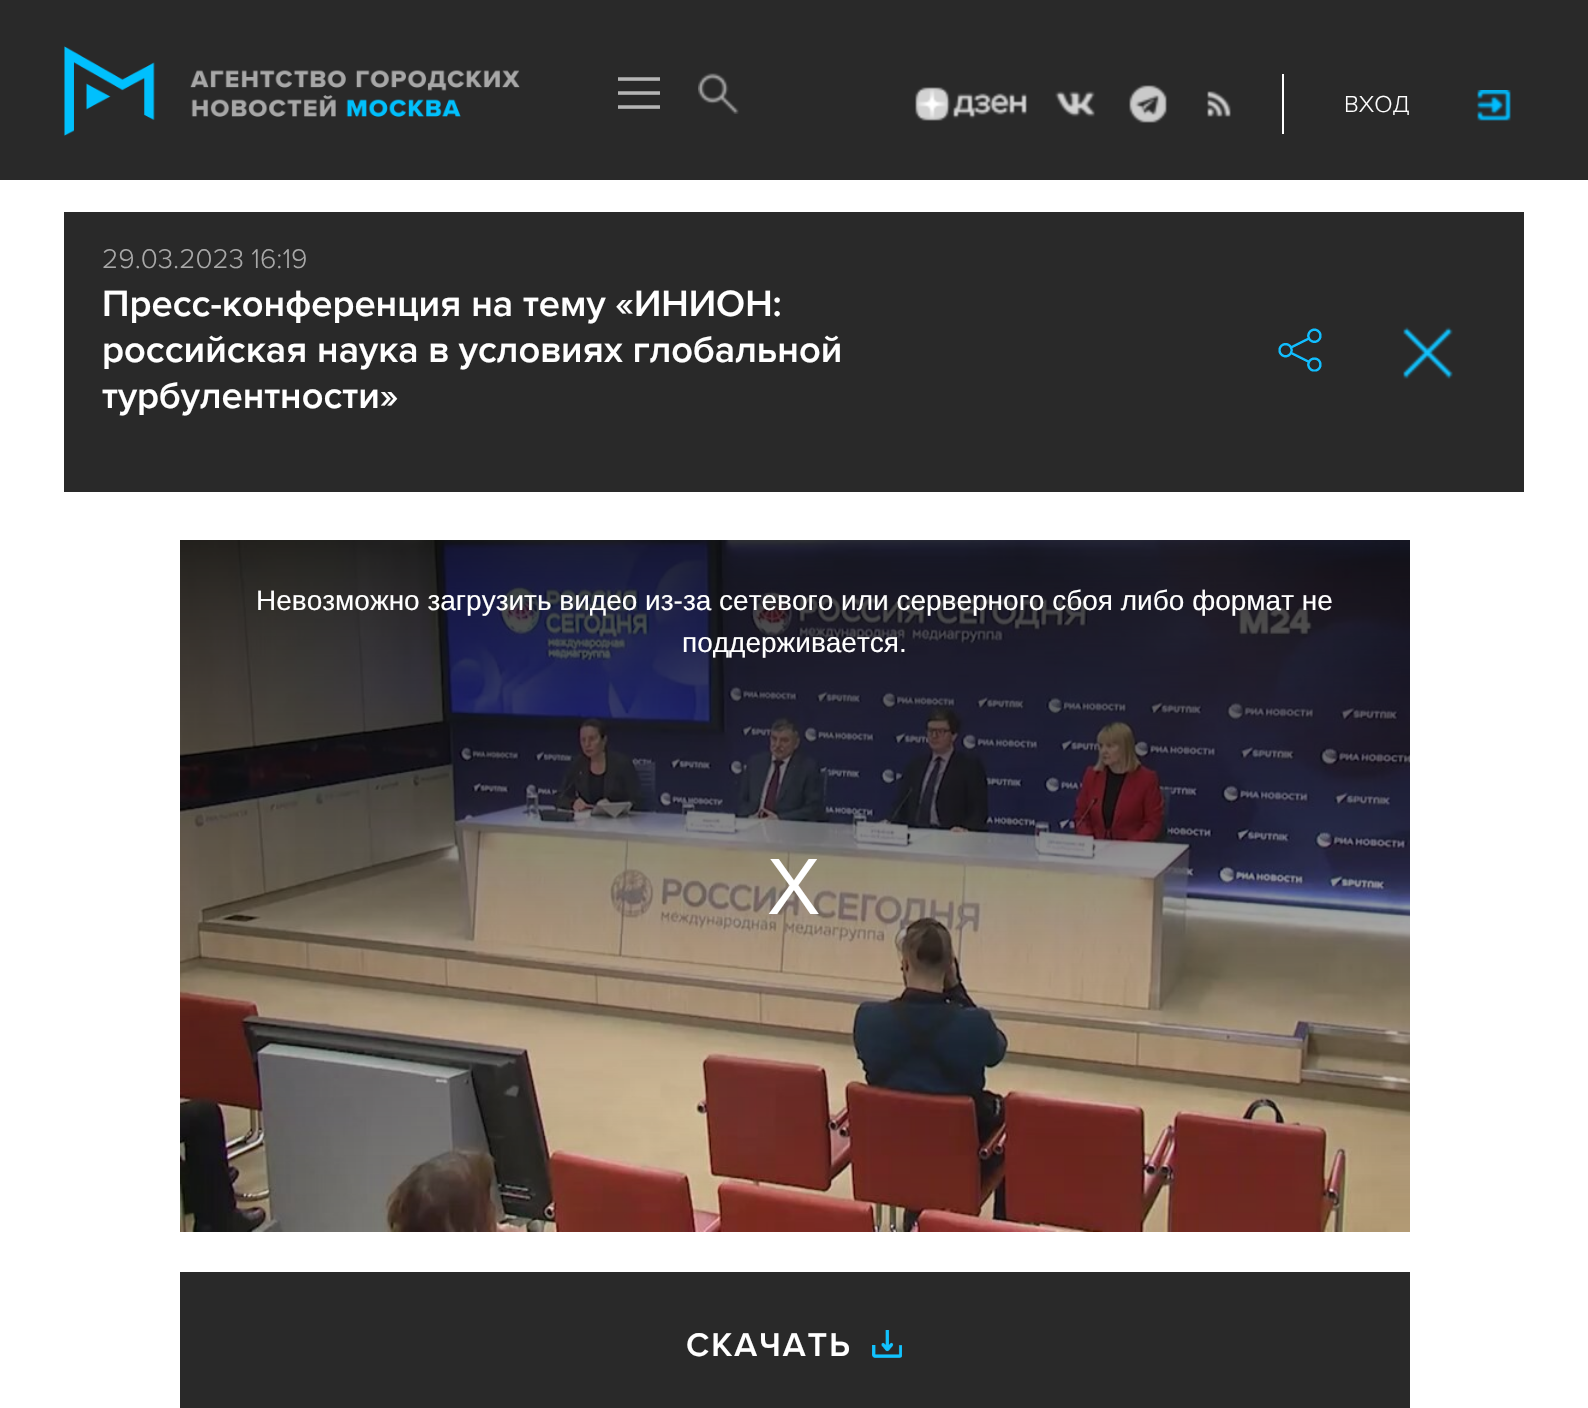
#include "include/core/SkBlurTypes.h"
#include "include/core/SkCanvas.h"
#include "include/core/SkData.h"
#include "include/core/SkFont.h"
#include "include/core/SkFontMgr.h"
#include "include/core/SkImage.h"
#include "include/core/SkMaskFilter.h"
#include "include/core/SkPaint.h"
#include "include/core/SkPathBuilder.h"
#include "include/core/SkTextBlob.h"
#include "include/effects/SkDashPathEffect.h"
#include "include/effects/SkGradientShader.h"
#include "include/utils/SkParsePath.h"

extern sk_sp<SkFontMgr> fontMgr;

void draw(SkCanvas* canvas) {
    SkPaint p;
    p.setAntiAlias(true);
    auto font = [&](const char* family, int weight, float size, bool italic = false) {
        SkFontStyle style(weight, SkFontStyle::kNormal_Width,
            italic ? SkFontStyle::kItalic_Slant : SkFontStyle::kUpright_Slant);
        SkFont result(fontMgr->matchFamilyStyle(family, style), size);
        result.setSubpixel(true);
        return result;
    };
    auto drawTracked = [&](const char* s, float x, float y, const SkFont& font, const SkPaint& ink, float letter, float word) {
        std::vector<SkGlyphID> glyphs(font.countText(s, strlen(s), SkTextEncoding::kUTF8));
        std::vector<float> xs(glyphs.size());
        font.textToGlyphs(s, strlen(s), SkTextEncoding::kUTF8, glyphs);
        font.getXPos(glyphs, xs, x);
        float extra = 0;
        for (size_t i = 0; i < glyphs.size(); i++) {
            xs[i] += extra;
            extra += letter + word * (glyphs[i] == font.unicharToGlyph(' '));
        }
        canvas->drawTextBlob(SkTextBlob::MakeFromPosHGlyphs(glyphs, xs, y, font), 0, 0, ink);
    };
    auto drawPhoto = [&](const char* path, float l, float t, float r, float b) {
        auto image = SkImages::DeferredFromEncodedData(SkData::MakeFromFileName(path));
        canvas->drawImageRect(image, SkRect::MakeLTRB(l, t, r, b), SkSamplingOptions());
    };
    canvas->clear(0xFFFFFFFF);
    p.setColor(0xFF292929);
    canvas->drawRect(SkRect::MakeLTRB(0, 0, 1588, 180), p);
    drawPhoto("media/1.png", 64, 46, 520, 136);
    drawPhoto("media/2.png", 618, 77, 660, 109);
    drawPhoto("media/3.png", 698, 73, 739, 114);
    p.setColor(0xFFFFFFFF);
    canvas->drawRect(SkRect::MakeLTRB(1282, 74, 1284, 134), p);
    drawPhoto("media/4.png", 915, 87, 1027, 121);
    drawPhoto("media/5.png", 1055, 91, 1095, 117);
    drawPhoto("media/6.png", 1129, 85, 1167, 123);
    drawPhoto("media/7.png", 1207, 91, 1231, 117);
    drawPhoto("media/8.png", 1477, 90, 1511, 121);
    auto font1 = font("Proxima Nova", 300, 24);
    canvas->drawString("ВХОД", 1344, 112, font1, p);
    p.setColor(0xFF292929);
    canvas->drawRect(SkRect::MakeLTRB(64, 212, 1524, 492), p);
    auto font2 = font("Proxima Nova", 300, 28);
    p.setColor(0xFFA8A8A8);
    canvas->drawString("29.03.2023 16:19", 102, 268, font2, p);
    auto font3 = font("Proxima Nova", 600, 38);
    p.setColor(0xFFFFFFFF);
    {
        const struct { const char* s; float x, y; } items[] = {
            {"Пресс-конференция на тему «ИНИОН:", 102, 316},
            {"российская наука в условиях глобальной", 102, 362},
            {"турбулентности»", 102, 408},
        };
        for (auto [s, x, y] : items) {
            canvas->drawString(s, x, y, font3, p);
        }
    }
    drawPhoto("media/9.png", 1278, 328, 1322, 372);
    drawPhoto("media/10.png", 1403, 327, 1453, 379);
    drawPhoto("media/11.png", 180, 540, 1410, 1232);
    auto font4 = font("Liberation Sans", 400, 28);
    canvas->drawString("Невозможно загрузить видео из-за сетевого или серверного сбоя либо формат не", 256, 610, font4, p);
    canvas->drawString("поддерживается.", 682, 652, font4, p);
    auto font5 = font("Liberation Sans", 400, 80);
    canvas->drawString("X", 767, 914, font5, p);
    p.setColor(0xFF292929);
    canvas->drawRect(SkRect::MakeLTRB(180, 1272, 1410, 1408), p);
    drawPhoto("media/12.png", 872, 1330, 902, 1358);
    auto font6 = font("Proxima Nova", 600, 34);
    p.setColor(0xFFFFFFFF);
    drawTracked("СКАЧАТЬ", 686, 1356, font6, p, 2, 0);
}
